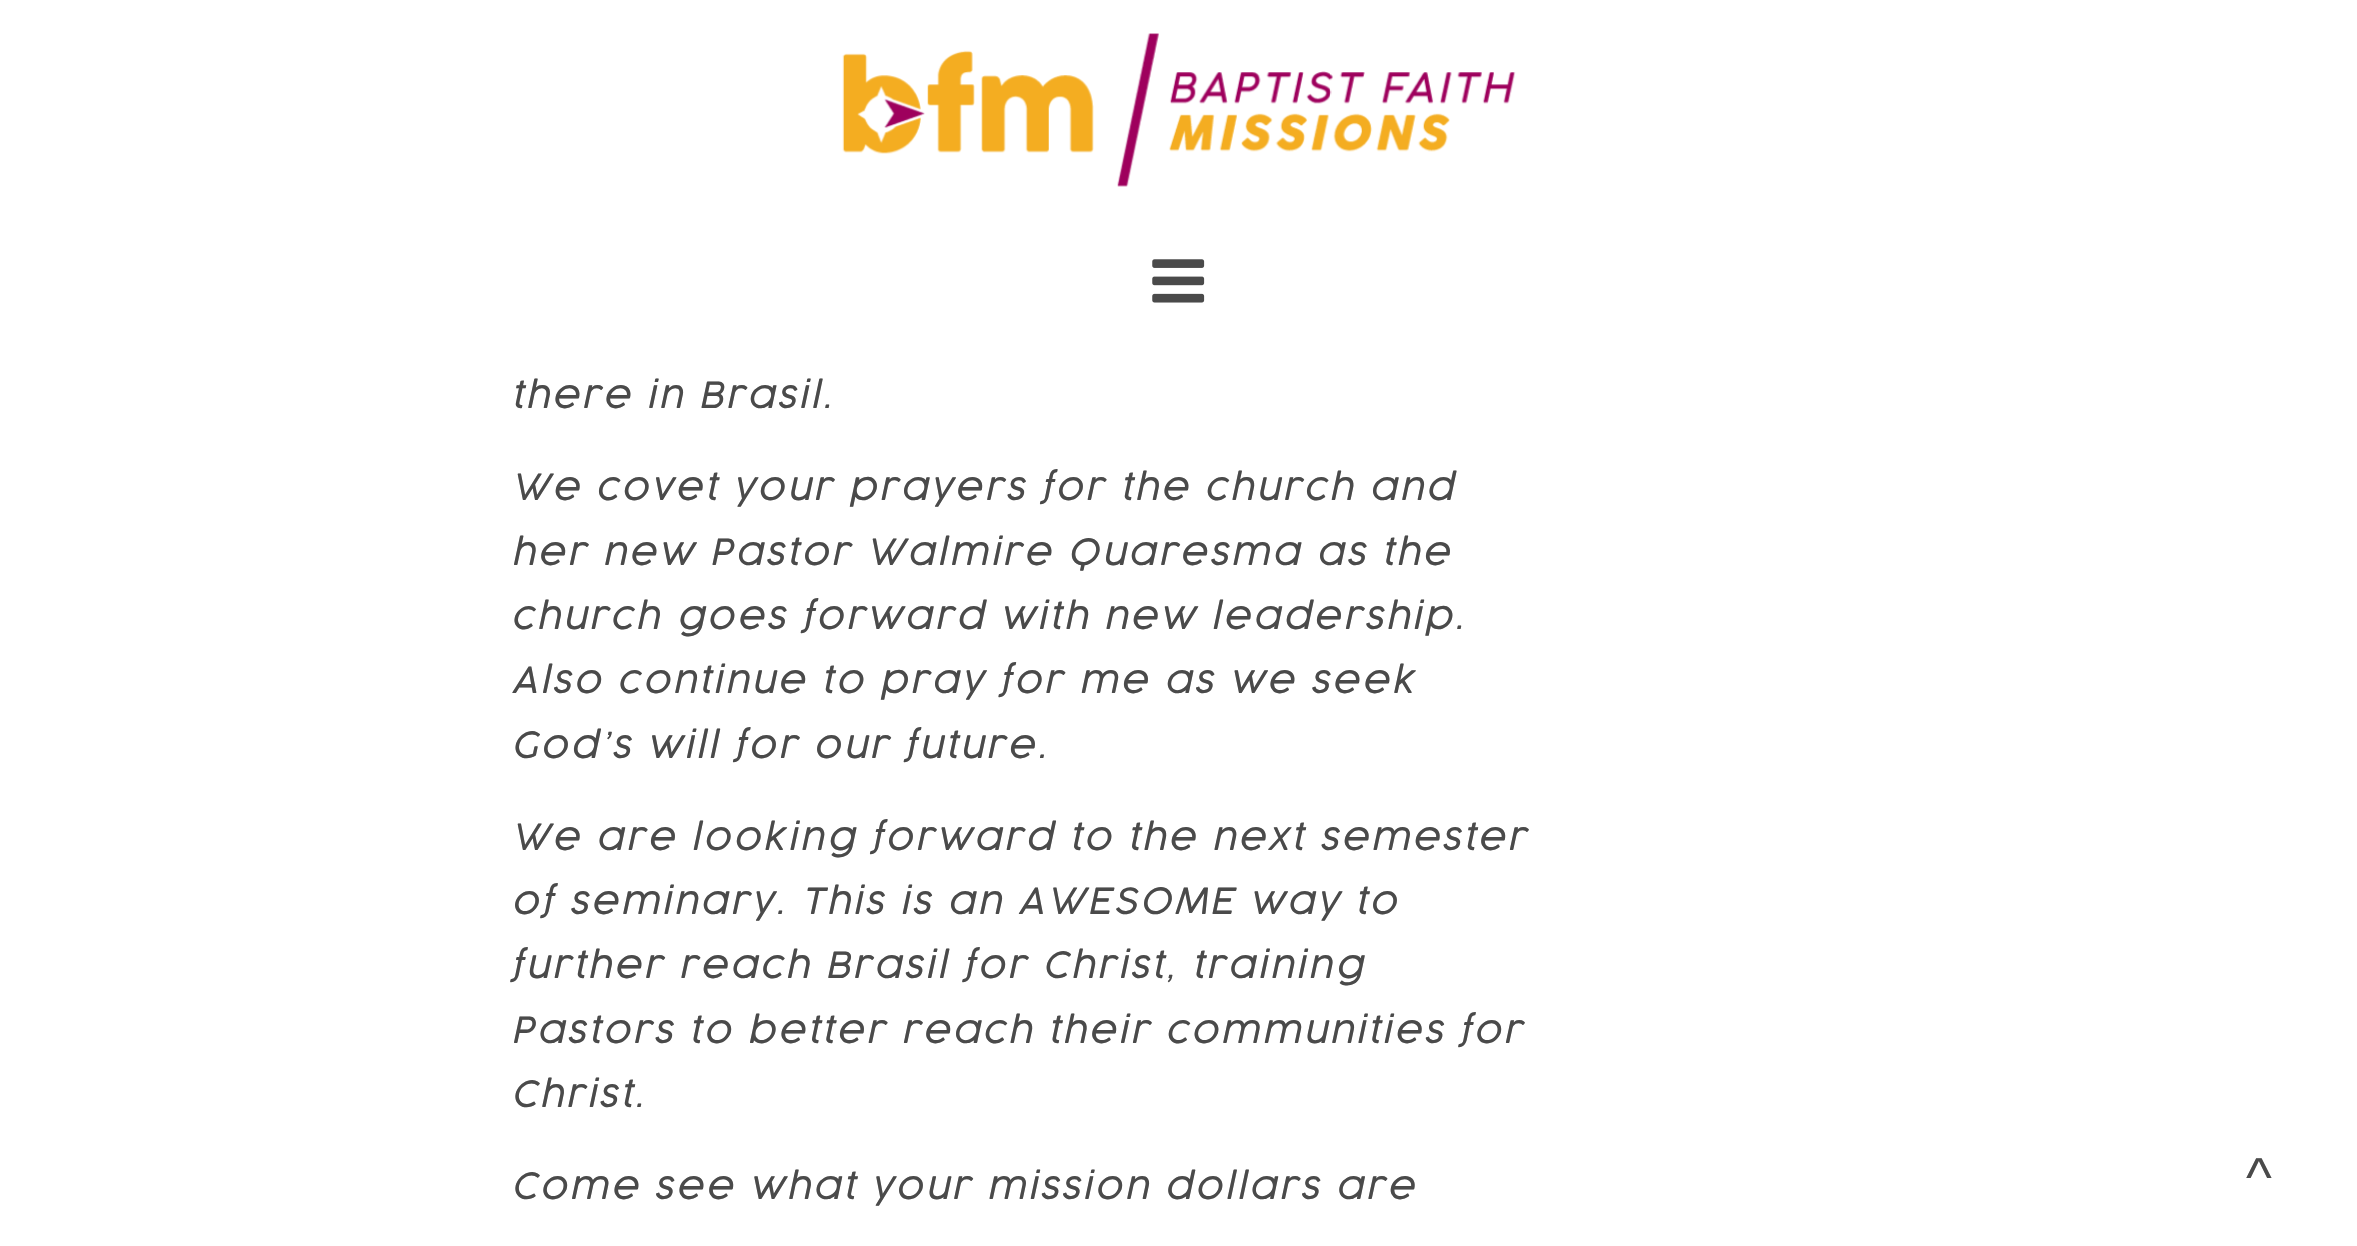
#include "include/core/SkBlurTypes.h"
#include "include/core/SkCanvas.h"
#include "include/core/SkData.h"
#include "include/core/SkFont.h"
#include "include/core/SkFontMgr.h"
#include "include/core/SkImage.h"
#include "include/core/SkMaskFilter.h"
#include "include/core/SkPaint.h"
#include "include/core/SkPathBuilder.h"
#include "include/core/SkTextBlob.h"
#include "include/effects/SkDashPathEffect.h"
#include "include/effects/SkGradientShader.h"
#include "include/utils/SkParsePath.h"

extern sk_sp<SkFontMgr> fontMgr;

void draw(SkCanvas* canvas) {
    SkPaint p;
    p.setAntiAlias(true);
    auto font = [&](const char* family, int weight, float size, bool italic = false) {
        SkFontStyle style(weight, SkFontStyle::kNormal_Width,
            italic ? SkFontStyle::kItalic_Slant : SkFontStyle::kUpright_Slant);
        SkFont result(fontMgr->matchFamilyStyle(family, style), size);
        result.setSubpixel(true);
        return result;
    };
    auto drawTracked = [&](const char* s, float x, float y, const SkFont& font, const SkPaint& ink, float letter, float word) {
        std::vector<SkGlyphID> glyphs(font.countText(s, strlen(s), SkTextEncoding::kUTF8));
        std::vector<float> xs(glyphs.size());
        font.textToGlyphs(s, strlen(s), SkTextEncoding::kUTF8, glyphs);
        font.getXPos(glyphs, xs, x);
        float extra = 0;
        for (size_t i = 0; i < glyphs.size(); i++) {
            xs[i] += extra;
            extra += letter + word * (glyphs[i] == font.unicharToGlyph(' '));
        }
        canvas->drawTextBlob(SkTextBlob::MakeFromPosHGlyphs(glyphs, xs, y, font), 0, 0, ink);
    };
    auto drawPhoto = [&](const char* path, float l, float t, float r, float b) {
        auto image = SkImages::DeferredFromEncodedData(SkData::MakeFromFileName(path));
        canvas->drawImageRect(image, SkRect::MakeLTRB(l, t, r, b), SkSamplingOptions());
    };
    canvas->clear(0xFFFFFFFF);
    drawPhoto("media/1.png", 842, 33, 1516, 187);
    drawPhoto("media/2.png", 1152, 259, 1205, 303);
    auto font1 = font("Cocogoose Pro", 300, 35.75f, true);
    p.setColor(0xFF4A4A4A);
    {
        const struct { const char* s; float x, y; } items[] = {
            {"there in Brasil.", 511, 408},
            {"We covet your prayers for the church and", 511, 500},
            {"her new Pastor Walmire Quaresma as the", 511, 565},
            {"church goes forward with new leadership.", 511, 629},
            {"Also continue to pray for me as we seek", 511, 693},
            {"God’s will for our future.", 511, 758},
            {"We are looking forward to the next semester", 511, 850},
            {"of seminary. This is an AWESOME way to", 511, 914},
            {"further reach Brasil for Christ, training", 511, 978},
            {"Pastors to better reach their communities for", 511, 1043},
            {"Christ.", 511, 1107},
            {"Come see what your mission dollars are", 511, 1199},
        };
        for (auto [s, x, y] : items) {
            drawTracked(s, x, y, font1, p, 2.75f, 0);
        }
    }
    auto font2 = font("Liberation Sans", 400, 55);
    drawTracked("^", 2246, 1196, font2, p, 2.75f, 0);
}
